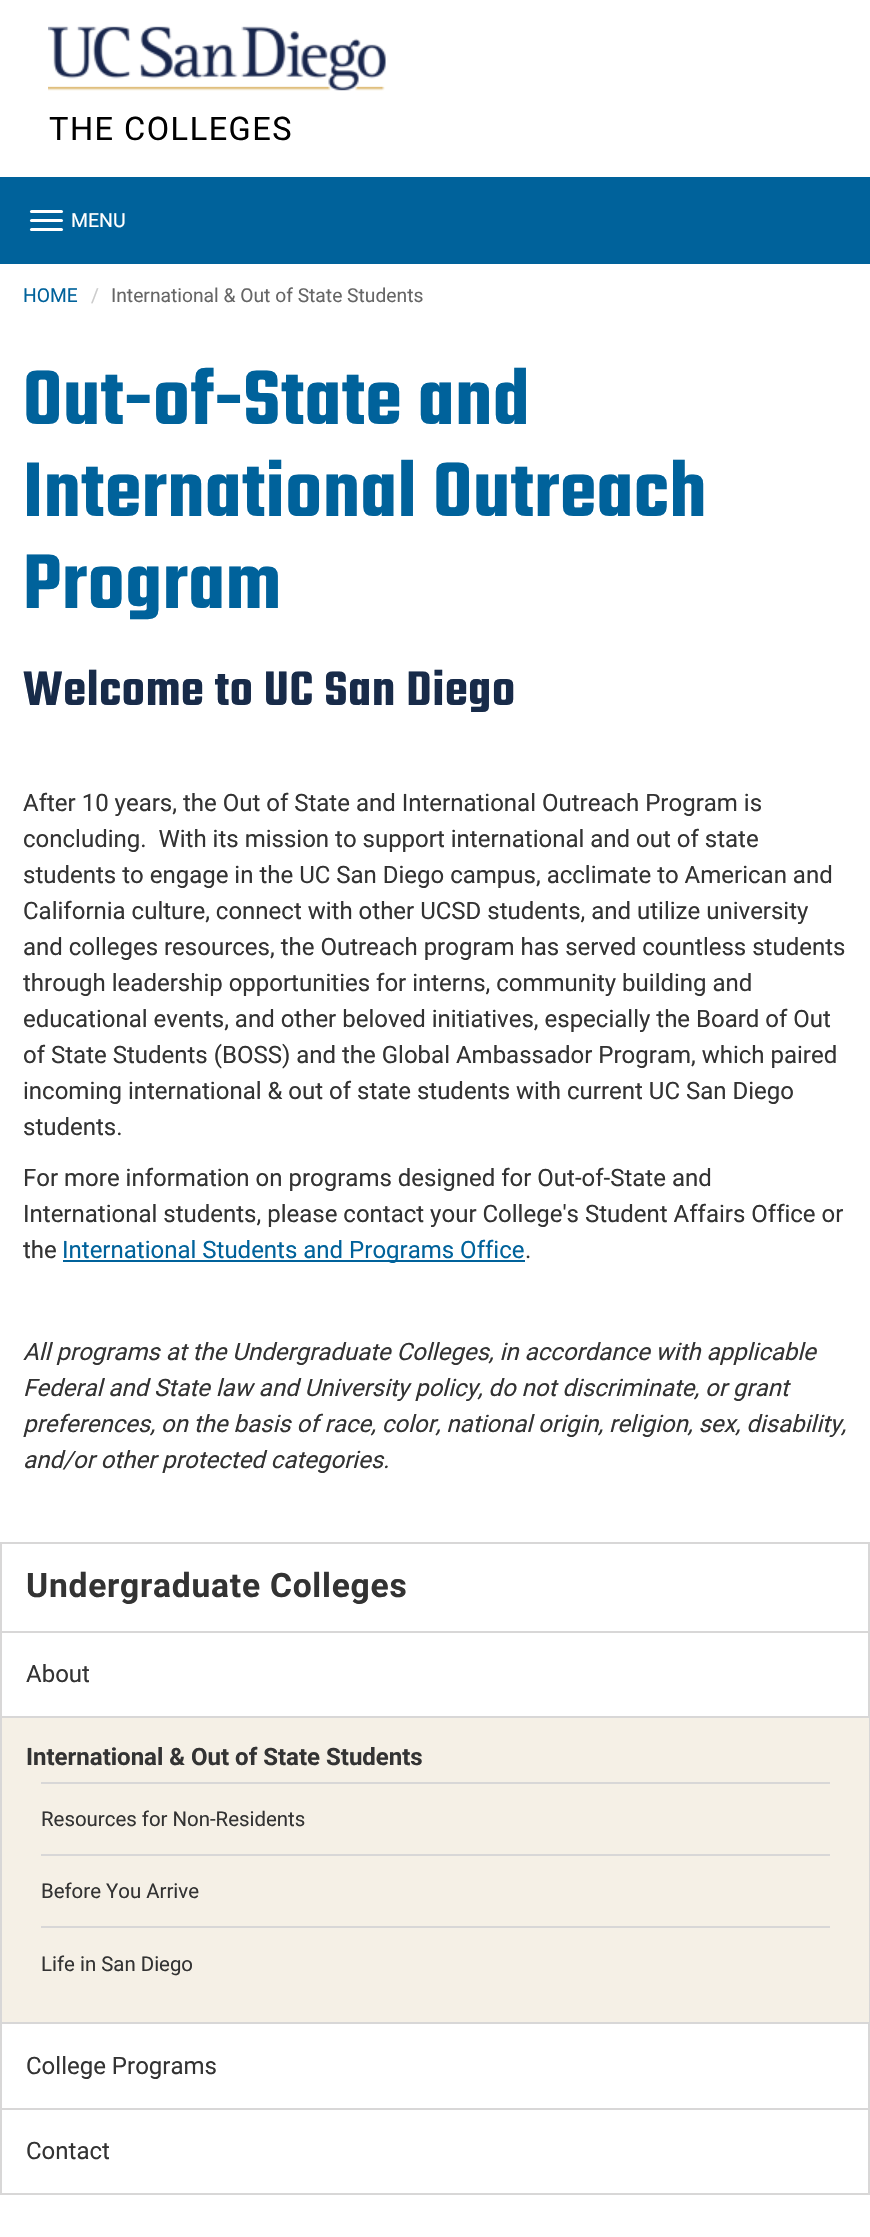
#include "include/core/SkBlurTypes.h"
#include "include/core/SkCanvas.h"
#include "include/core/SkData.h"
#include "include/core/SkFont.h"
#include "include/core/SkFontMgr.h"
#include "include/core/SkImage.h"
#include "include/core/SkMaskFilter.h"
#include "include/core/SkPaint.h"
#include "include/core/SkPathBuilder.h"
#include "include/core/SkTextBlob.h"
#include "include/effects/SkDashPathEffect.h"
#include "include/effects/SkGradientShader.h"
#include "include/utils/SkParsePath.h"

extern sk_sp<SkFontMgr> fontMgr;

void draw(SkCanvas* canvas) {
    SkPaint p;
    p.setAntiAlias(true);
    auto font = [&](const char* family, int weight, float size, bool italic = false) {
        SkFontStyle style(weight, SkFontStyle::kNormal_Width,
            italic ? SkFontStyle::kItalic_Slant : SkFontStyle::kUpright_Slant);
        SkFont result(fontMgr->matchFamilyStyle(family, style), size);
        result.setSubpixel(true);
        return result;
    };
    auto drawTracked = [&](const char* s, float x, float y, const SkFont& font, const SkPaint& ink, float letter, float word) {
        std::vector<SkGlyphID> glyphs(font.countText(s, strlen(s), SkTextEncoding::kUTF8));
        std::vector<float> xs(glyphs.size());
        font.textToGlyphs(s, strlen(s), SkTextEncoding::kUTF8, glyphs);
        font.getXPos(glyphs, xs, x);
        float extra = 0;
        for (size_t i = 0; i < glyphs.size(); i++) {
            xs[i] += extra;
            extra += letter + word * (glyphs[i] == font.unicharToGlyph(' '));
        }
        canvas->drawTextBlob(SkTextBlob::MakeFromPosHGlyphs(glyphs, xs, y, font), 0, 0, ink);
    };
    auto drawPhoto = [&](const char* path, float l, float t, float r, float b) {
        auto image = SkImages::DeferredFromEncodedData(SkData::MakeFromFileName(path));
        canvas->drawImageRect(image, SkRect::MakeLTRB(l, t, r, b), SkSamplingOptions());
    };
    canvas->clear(0xFFFFFFFF);
    drawPhoto("media/1.png", 48, 26, 386, 91);
    auto font1 = font("Roboto", 400, 32.5f);
    p.setColor(0xFF000000);
    drawTracked("THE COLLEGES", 49, 140, font1, p, 1.5f, 0);
    p.setColor(0xFF00629B);
    canvas->drawRect(SkRect::MakeLTRB(0, 177, 870, 264), p);
    p.setColor(0xFFFFFFFF);
    canvas->drawRoundRect(SkRect::MakeLTRB(30, 210, 63, 213), 1.5f, 1.5f, p);
    canvas->drawRoundRect(SkRect::MakeLTRB(30, 219, 63, 222), 1.5f, 1.5f, p);
    canvas->drawRoundRect(SkRect::MakeLTRB(30, 228, 63, 231), 1.5f, 1.5f, p);
    auto font2 = font("Roboto", 400, 19.5f);
    canvas->drawString("MENU", 71, 227, font2, p);
    auto font3 = font("Roboto", 400, 19.25f);
    p.setColor(0xFF00629B);
    canvas->drawString("HOME", 23, 302, font3, p);
    p.setColor(0xFFCCCCCC);
    canvas->drawString("/", 91, 302, font3, p);
    p.setColor(0xFF666666);
    canvas->drawString("International & Out of State Students", 111, 302, font3, p);
    auto font4 = font("Teko", 600, 84);
    p.setColor(0xFF00629B);
    {
        const struct { const char* s; float x, y; } items[] = {
            {"Out-of-State and", 23, 424},
            {"International Outreach", 23, 516},
            {"Program", 23, 608},
        };
        for (auto [s, x, y] : items) {
            drawTracked(s, x, y, font4, p, 0.75f, 0);
        }
    }
    auto font5 = font("Teko", 600, 52.75f);
    p.setColor(0xFF182B49);
    drawTracked("Welcome to UC San Diego", 23, 705, font5, p, 0.75f, 0);
    auto font6 = font("Roboto", 400, 24);
    p.setColor(0xFF333333);
    {
        const struct { const char* s; float x, y; } items[] = {
            {"After 10 years, the Out of State and International Outreach Program is", 23, 811},
            {"concluding.  With its mission to support international and out of state", 23, 847},
            {"students to engage in the UC San Diego campus, acclimate to American and", 23, 883},
            {"California culture, connect with other UCSD students, and utilize university", 23, 919},
            {"and colleges resources, the Outreach program has served countless students", 23, 955},
            {"through leadership opportunities for interns, community building and", 23, 991},
            {"educational events, and other beloved initiatives, especially the Board of Out", 23, 1027},
            {"of State Students (BOSS) and the Global Ambassador Program, which paired", 23, 1063},
            {"incoming international & out of state students with current UC San Diego", 23, 1099},
            {"students.", 23, 1135},
            {"For more information on programs designed for Out-of-State and", 23, 1186},
            {"International students, please contact your College's Student Affairs Office or", 23, 1222},
            {"the", 23, 1258},
        };
        for (auto [s, x, y] : items) {
            canvas->drawString(s, x, y, font6, p);
        }
    }
    p.setColor(0xFF00629B);
    canvas->drawRect(SkRect::MakeLTRB(63, 1260, 525, 1262), p);
    canvas->drawString("International Students and Programs Office", 62, 1258, font6, p);
    p.setColor(0xFF333333);
    canvas->drawString(".", 525, 1258, font6, p);
    auto font7 = font("Roboto", 400, 24, true);
    {
        const struct { const char* s; float x, y; } items[] = {
            {"All programs at the Undergraduate Colleges, in accordance with applicable", 23, 1360},
            {"Federal and State law and University policy, do not discriminate, or grant", 23, 1396},
            {"preferences, on the basis of race, color, national origin, religion, sex, disability,", 23, 1432},
            {"and/or other protected categories.", 23, 1468},
        };
        for (auto [s, x, y] : items) {
            canvas->drawString(s, x, y, font7, p);
        }
    }
    p.setStyle(SkPaint::kStroke_Style);
    p.setStrokeWidth(2);
    p.setColor(0xFFD8D7D7);
    canvas->drawRect(SkRect::MakeLTRB(1, 1543, 869, 2194), p);
    auto font8 = font("Roboto", 700, 33.6f);
    p.setStyle(SkPaint::kFill_Style);
    p.setColor(0xFF333333);
    drawTracked("Undergraduate Colleges", 26, 1597, font8, p, 0.75f, 0);
    p.setColor(0xFFD8D7D7);
    canvas->drawRect(SkRect::MakeLTRB(2, 1631, 869, 1633), p);
    p.setColor(0xFF333333);
    canvas->drawString("About", 26, 1682, font6, p);
    p.setColor(0xFFF5F0E6);
    canvas->drawRect(SkRect::MakeLTRB(2, 1718, 869, 2022), p);
    p.setColor(0xFFD8D7D7);
    canvas->drawRect(SkRect::MakeLTRB(2, 1716, 869, 1718), p);
    auto font9 = font("Roboto", 700, 24);
    p.setColor(0xFF333333);
    canvas->drawString("International & Out of State Students", 26, 1765, font9, p);
    p.setColor(0xFFD8D7D7);
    canvas->drawRect(SkRect::MakeLTRB(41, 1782, 830, 1784), p);
    auto font10 = font("Roboto", 400, 20.4f);
    p.setColor(0xFF333333);
    canvas->drawString("Resources for Non-Residents", 41, 1826, font10, p);
    p.setColor(0xFFD8D7D7);
    canvas->drawRect(SkRect::MakeLTRB(41, 1854, 830, 1856), p);
    p.setColor(0xFF333333);
    canvas->drawString("Before You Arrive", 41, 1898, font10, p);
    p.setColor(0xFFD8D7D7);
    canvas->drawRect(SkRect::MakeLTRB(41, 1926, 830, 1928), p);
    p.setColor(0xFF333333);
    canvas->drawString("Life in San Diego", 41, 1971, font10, p);
    p.setColor(0xFFD8D7D7);
    canvas->drawRect(SkRect::MakeLTRB(2, 2022, 869, 2024), p);
    p.setColor(0xFF333333);
    canvas->drawString("College Programs", 26, 2074, font6, p);
    p.setColor(0xFFD8D7D7);
    canvas->drawRect(SkRect::MakeLTRB(2, 2108, 869, 2110), p);
    p.setColor(0xFF333333);
    canvas->drawString("Contact", 26, 2159, font6, p);
}
